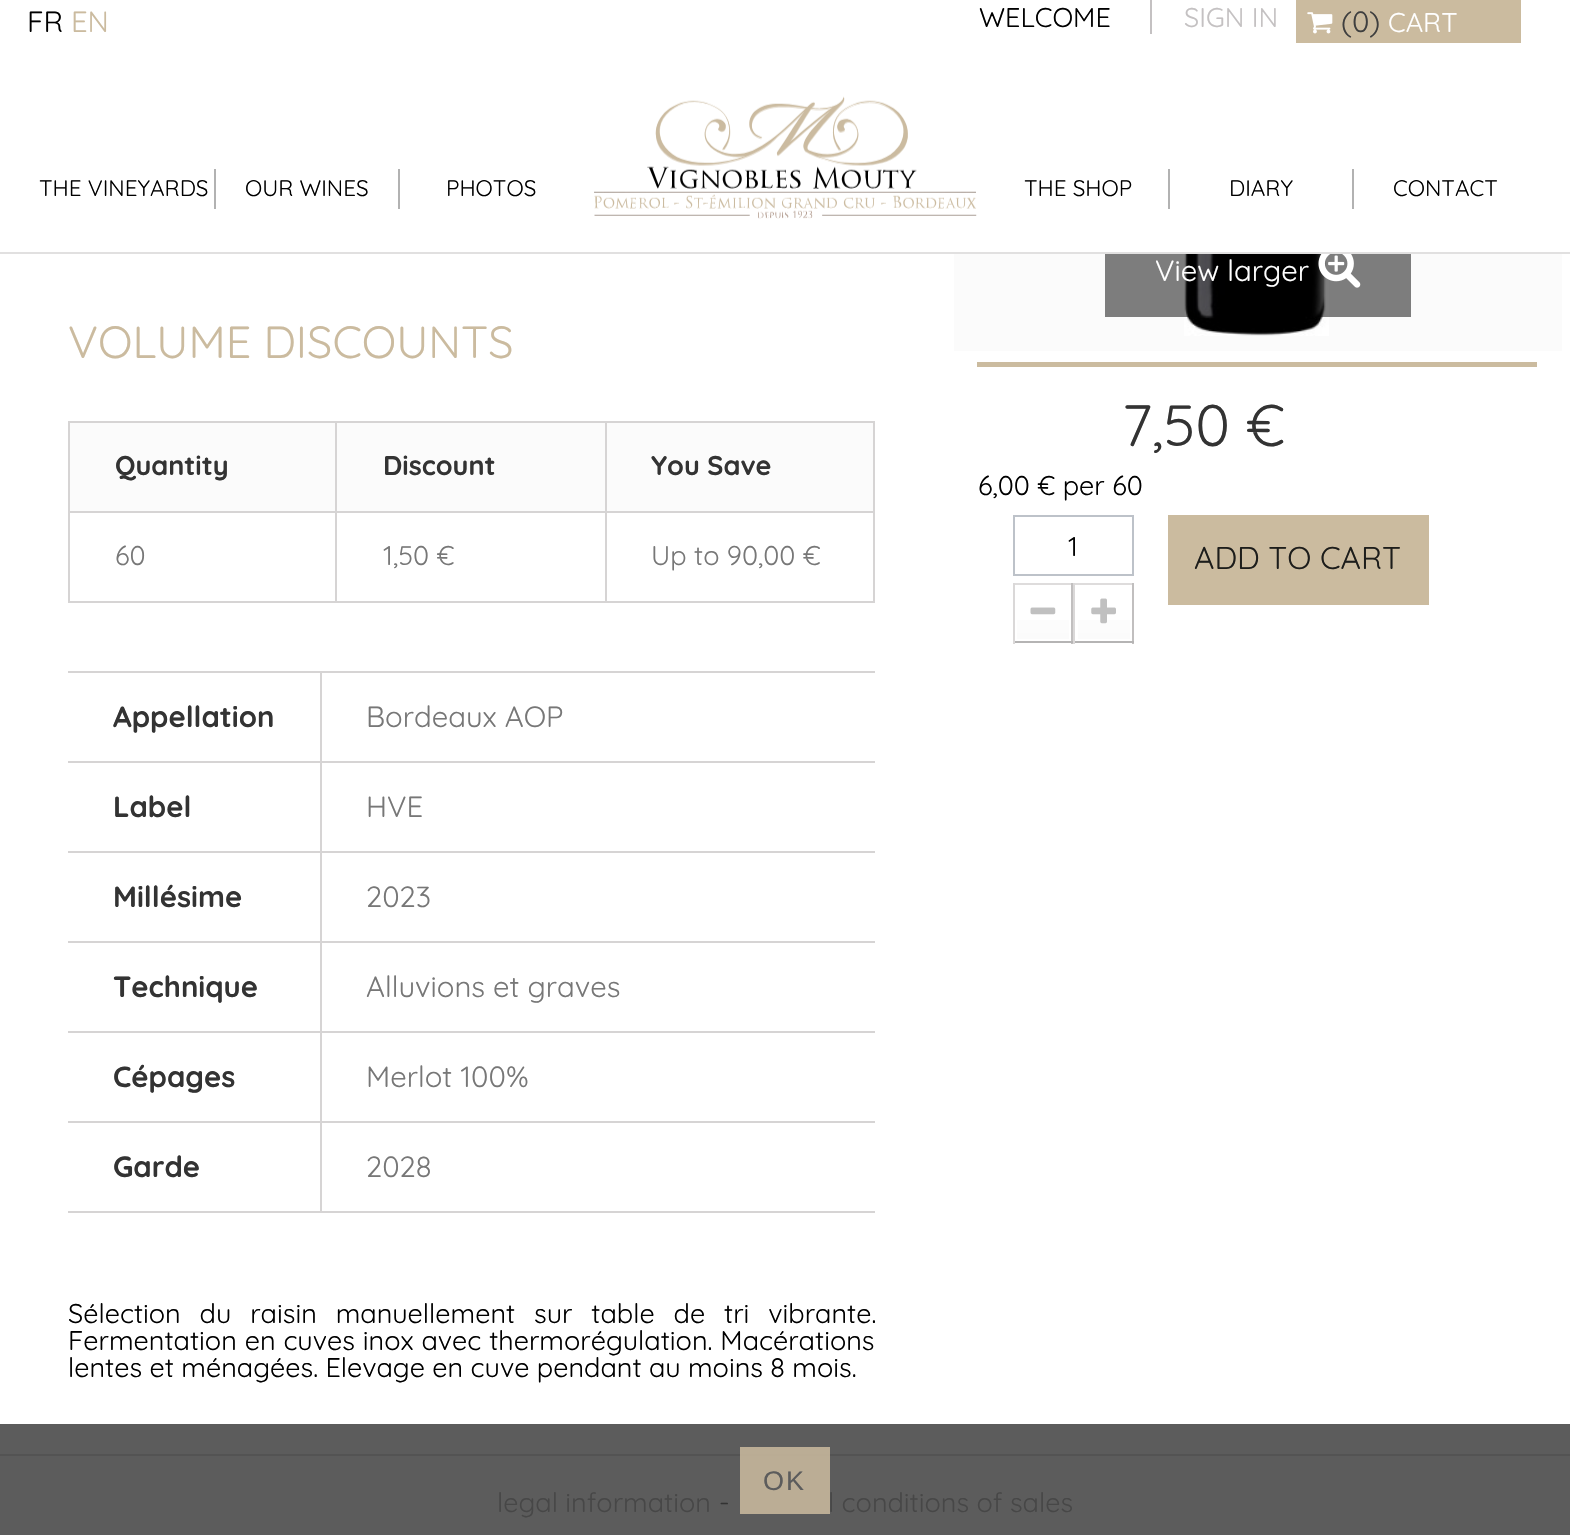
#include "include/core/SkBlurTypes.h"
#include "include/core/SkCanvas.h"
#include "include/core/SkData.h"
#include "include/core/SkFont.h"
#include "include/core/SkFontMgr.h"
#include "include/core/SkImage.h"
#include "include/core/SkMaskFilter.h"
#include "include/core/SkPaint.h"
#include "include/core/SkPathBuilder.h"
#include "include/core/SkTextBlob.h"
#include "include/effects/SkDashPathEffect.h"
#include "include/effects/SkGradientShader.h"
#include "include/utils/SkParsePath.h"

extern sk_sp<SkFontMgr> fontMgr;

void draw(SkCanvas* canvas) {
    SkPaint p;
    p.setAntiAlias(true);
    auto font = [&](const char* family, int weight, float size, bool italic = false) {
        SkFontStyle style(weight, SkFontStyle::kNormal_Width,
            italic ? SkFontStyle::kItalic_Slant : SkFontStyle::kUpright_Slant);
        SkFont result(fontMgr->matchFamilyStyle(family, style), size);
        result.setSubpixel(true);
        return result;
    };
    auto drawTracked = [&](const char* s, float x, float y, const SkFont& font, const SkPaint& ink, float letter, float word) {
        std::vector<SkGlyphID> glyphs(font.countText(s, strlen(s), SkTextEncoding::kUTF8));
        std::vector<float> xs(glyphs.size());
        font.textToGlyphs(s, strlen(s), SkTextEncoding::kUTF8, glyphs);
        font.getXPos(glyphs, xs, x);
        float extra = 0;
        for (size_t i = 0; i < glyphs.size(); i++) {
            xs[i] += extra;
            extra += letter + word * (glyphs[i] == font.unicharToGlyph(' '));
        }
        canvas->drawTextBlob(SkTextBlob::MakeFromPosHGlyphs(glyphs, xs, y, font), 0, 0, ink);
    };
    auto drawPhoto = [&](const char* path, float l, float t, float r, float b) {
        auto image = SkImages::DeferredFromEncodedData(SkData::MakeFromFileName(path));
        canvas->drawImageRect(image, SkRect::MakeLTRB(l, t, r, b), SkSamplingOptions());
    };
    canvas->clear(0xFFFFFFFF);
    p.setColor(0xFF5C5C5C);
    canvas->drawRect(SkRect::MakeLTRB(0, 1424, 1570, 1535), p);
    p.setColor(0xFFE1E0E0);
    canvas->drawRect(SkRect::MakeLTRB(0, 252, 1570, 254), p);
    auto font1 = font("Quicksand", 400, 29.25f);
    p.setColor(0xFF000000);
    canvas->drawString("FR", 27, 32, font1, p);
    p.setColor(0xFFCBBB9F);
    canvas->drawString("EN", 71, 32, font1, p);
    auto font2 = font("Quicksand", 400, 27);
    p.setColor(0xFF000000);
    canvas->drawString("WELCOME", 979, 27, font2, p);
    p.setColor(0xFFC4C1C2);
    canvas->drawString("SIGN IN", 1184, 27, font2, p);
    canvas->drawRect(SkRect::MakeLTRB(1150, 0, 1152, 34), p);
    p.setColor(0xFFCBBB9F);
    canvas->drawRect(SkRect::MakeLTRB(1296, 0, 1521, 43), p);
    drawPhoto("media/1.png", 1307, 12, 1333, 34);
    p.setColor(0xFF3F3F3F);
    canvas->drawString("(0)", 1341, 32, font1, p);
    p.setColor(0xFFFFFFFF);
    canvas->drawString("CART", 1388, 32, font2, p);
    drawPhoto("media/2.png", 594, 96, 977, 219);
    p.setColor(0xFFB2B2B2);
    canvas->drawRect(SkRect::MakeLTRB(214, 169, 216, 209), p);
    auto font3 = font("Quicksand", 400, 22.5f);
    p.setColor(0xFF000000);
    canvas->drawString("THE VINEYARDS", 39, 196, font3, p);
    p.setColor(0xFFB2B2B2);
    canvas->drawRect(SkRect::MakeLTRB(398, 169, 400, 209), p);
    p.setColor(0xFF000000);
    canvas->drawString("OUR WINES", 245, 196, font3, p);
    canvas->drawString("PHOTOS", 446, 196, font3, p);
    p.setColor(0xFFB2B2B2);
    canvas->drawRect(SkRect::MakeLTRB(1168, 169, 1170, 209), p);
    p.setColor(0xFF000000);
    canvas->drawString("THE SHOP", 1024, 196, font3, p);
    p.setColor(0xFFB2B2B2);
    canvas->drawRect(SkRect::MakeLTRB(1352, 169, 1354, 209), p);
    p.setColor(0xFF000000);
    canvas->drawString("DIARY", 1229, 196, font3, p);
    canvas->drawString("CONTACT", 1393, 196, font3, p);
    auto font4 = font("Quicksand", 400, 45);
    p.setColor(0xFFCBBB9F);
    canvas->drawString("VOLUME DISCOUNTS", 68, 358, font4, p);
    {
        const struct { float l, t, r, b; SkColor color; } items[] = {
            {873, 421, 875, 603, 0xFFD6D4D4},
            {68, 601, 875, 603, 0xFFD6D4D4},
            {70, 423, 335, 511, 0xFFFBFBFB},
            {68, 421, 873, 423, 0xFFD6D4D4},
            {68, 421, 70, 511, 0xFFD6D4D4},
        };
        for (auto [l, t, r, b, color] : items) {
            p.setColor(color);
            canvas->drawRect(SkRect::MakeLTRB(l, t, r, b), p);
        }
    }
    auto font5 = font("Quicksand", 700, 27);
    p.setColor(0xFF333333);
    canvas->drawString("Quantity", 115, 475, font5, p);
    p.setColor(0xFFFBFBFB);
    canvas->drawRect(SkRect::MakeLTRB(337, 423, 605, 511), p);
    p.setColor(0xFFD6D4D4);
    canvas->drawRect(SkRect::MakeLTRB(335, 421, 337, 511), p);
    p.setColor(0xFF333333);
    canvas->drawString("Discount", 383, 475, font5, p);
    p.setColor(0xFFFBFBFB);
    canvas->drawRect(SkRect::MakeLTRB(607, 423, 873, 511), p);
    p.setColor(0xFFD6D4D4);
    canvas->drawRect(SkRect::MakeLTRB(605, 421, 607, 511), p);
    p.setColor(0xFF333333);
    canvas->drawString("You Save", 651, 475, font5, p);
    p.setColor(0xFFD6D4D4);
    canvas->drawRect(SkRect::MakeLTRB(68, 511, 873, 513), p);
    canvas->drawRect(SkRect::MakeLTRB(68, 511, 70, 601), p);
    p.setColor(0xFF777777);
    canvas->drawString("60", 115, 565, font2, p);
    p.setColor(0xFFD6D4D4);
    canvas->drawRect(SkRect::MakeLTRB(335, 511, 337, 601), p);
    p.setColor(0xFF777777);
    canvas->drawString("1,50 €", 383, 565, font2, p);
    p.setColor(0xFFD6D4D4);
    canvas->drawRect(SkRect::MakeLTRB(605, 511, 607, 601), p);
    p.setColor(0xFF777777);
    canvas->drawString("Up to 90,00 €", 651, 565, font2, p);
    p.setColor(0xFFD6D4D4);
    canvas->drawRect(SkRect::MakeLTRB(68, 1211, 875, 1213), p);
    canvas->drawRect(SkRect::MakeLTRB(68, 671, 875, 673), p);
    auto font6 = font("Quicksand", 700, 29.25f);
    p.setColor(0xFF333333);
    canvas->drawString("Appellation", 113, 727, font6, p);
    p.setColor(0xFF777777);
    canvas->drawString("Bordeaux AOP", 366, 727, font1, p);
    p.setColor(0xFFD6D4D4);
    canvas->drawRect(SkRect::MakeLTRB(68, 761, 875, 763), p);
    p.setColor(0xFF333333);
    canvas->drawString("Label", 113, 817, font6, p);
    p.setColor(0xFF777777);
    canvas->drawString("HVE", 366, 817, font1, p);
    p.setColor(0xFFD6D4D4);
    canvas->drawRect(SkRect::MakeLTRB(68, 851, 875, 853), p);
    p.setColor(0xFF333333);
    canvas->drawString("Millésime", 113, 907, font6, p);
    p.setColor(0xFF777777);
    canvas->drawString("2023", 366, 907, font1, p);
    p.setColor(0xFFD6D4D4);
    canvas->drawRect(SkRect::MakeLTRB(68, 941, 875, 943), p);
    p.setColor(0xFF333333);
    canvas->drawString("Technique", 113, 997, font6, p);
    p.setColor(0xFF777777);
    canvas->drawString("Alluvions et graves", 366, 997, font1, p);
    p.setColor(0xFFD6D4D4);
    canvas->drawRect(SkRect::MakeLTRB(68, 1031, 875, 1033), p);
    p.setColor(0xFF333333);
    canvas->drawString("Cépages", 113, 1087, font6, p);
    p.setColor(0xFF777777);
    canvas->drawString("Merlot 100%", 366, 1087, font1, p);
    p.setColor(0xFFD6D4D4);
    canvas->drawRect(SkRect::MakeLTRB(68, 1121, 875, 1123), p);
    canvas->drawRect(SkRect::MakeLTRB(320, 671, 322, 1213), p);
    p.setColor(0xFF333333);
    canvas->drawString("Garde", 113, 1177, font6, p);
    p.setColor(0xFF777777);
    canvas->drawString("2028", 366, 1177, font1, p);
    p.setColor(0xFF000000);
    drawTracked("Sélection du raisin manuellement sur table de tri vibrante.", 68, 1323, font2, p, 0, 11.5f);
    drawTracked("Fermentation en cuves inox avec thermorégulation. Macérations", 68, 1350, font2, p, 0, 0.5f);
    canvas->drawString("lentes et ménagées. Elevage en cuve pendant au moins 8 mois.", 68, 1377, font2, p);
    p.setColor(0xFFFBFBFB);
    canvas->drawRect(SkRect::MakeLTRB(954, 254, 1562, 351), p);
    drawPhoto("media/3.png", 1184, 254, 1329, 336);
    p.setColor(0x80000000);
    canvas->drawRect(SkRect::MakeLTRB(1105, 254, 1411, 317), p);
    p.setColor(0xFFFFFFFF);
    canvas->drawString("View larger", 1155, 281, font1, p);
    drawPhoto("media/4.png", 1318, 254, 1361, 288);
    p.setColor(0xFFCBBB9F);
    canvas->drawRect(SkRect::MakeLTRB(977, 362, 1537, 367), p);
    auto font7 = font("Quicksand", 400, 58.5f);
    p.setColor(0xFF333333);
    canvas->drawString("7,50 €", 1122, 446, font7, p);
    p.setColor(0xFF000000);
    canvas->drawString("6,00 € per 60", 978, 495, font2, p);
    p.setStyle(SkPaint::kStroke_Style);
    p.setStrokeWidth(2);
    p.setColor(0xFFBDC2C9);
    canvas->drawRect(SkRect::MakeLTRB(1014, 516, 1133, 575), p);
    p.setStyle(SkPaint::kFill_Style);
    p.setColor(0xFF000000);
    canvas->drawString("1", 1068, 556, font2, p);
    {
        const struct { float l, t, r, b; SkColor color; } items[] = {
            {1013, 583, 1134, 585, 0xFFDEDCDC},
            {1071, 583, 1073, 644, 0xFFC1BFBF},
            {1013, 641, 1073, 643, 0xFFB5B4B4},
            {1013, 583, 1015, 644, 0xFFDAD8D8},
        };
        for (auto [l, t, r, b, color] : items) {
            p.setColor(color);
            canvas->drawRect(SkRect::MakeLTRB(l, t, r, b), p);
        }
    }
    {
        const SkColor colors[] = {0xFFFFFFFF, 0xFFFBFBFB};
        const float stops[] = {0, 1};
        const SkPoint ends[] = {{1043, 587}, {1043, 639}};
        p.setShader(SkGradientShader::MakeLinear(ends, colors, stops, 2, SkTileMode::kClamp));
        p.setAlpha(255);
    }
    canvas->drawRect(SkRect::MakeLTRB(1017, 620, 1069, 639), p);
    drawPhoto("media/5.png", 1030, 607, 1056, 615);
    p.setShader(nullptr);
    {
        const struct { float l, t, r, b; SkColor color; } items[] = {
            {1132, 583, 1134, 644, 0xFFC1BFBF},
            {1073, 641, 1134, 643, 0xFFB5B4B4},
            {1073, 583, 1075, 644, 0xFFDAD8D8},
        };
        for (auto [l, t, r, b, color] : items) {
            p.setColor(color);
            canvas->drawRect(SkRect::MakeLTRB(l, t, r, b), p);
        }
    }
    {
        const SkColor colors[] = {0xFFFFFFFF, 0xFFFBFBFB};
        const float stops[] = {0, 1};
        const SkPoint ends[] = {{1104, 587}, {1104, 639}};
        p.setShader(SkGradientShader::MakeLinear(ends, colors, stops, 2, SkTileMode::kClamp));
        p.setAlpha(255);
    }
    canvas->drawRect(SkRect::MakeLTRB(1078, 620, 1130, 639), p);
    drawPhoto("media/6.png", 1091, 598, 1116, 624);
    p.setShader(nullptr);
    p.setColor(0xFFCBBB9F);
    canvas->drawRect(SkRect::MakeLTRB(1168, 515, 1429, 605), p);
    auto font8 = font("Quicksand", 400, 31.5f);
    p.setColor(0xFF1D1D1B);
    canvas->drawString("ADD TO CART", 1194, 569, font8, p);
    p.setColor(0xFF535353);
    canvas->drawRect(SkRect::MakeLTRB(0, 1454, 1570, 1456), p);
    p.setColor(0xD9CBBB9F);
    canvas->drawRect(SkRect::MakeLTRB(740, 1447, 830, 1514), p);
    auto font9 = font("Liberation Sans", 400, 27);
    p.setColor(0xFF5C5C5C);
    drawTracked("OK", 763, 1490, font9, p, 2, 0);
    p.setColor(0xFF474747);
    canvas->drawString("legal information", 497, 1512, font2, p);
    p.setColor(0xFF333333);
    canvas->drawString("-", 719, 1512, font2, p);
    p.setColor(0xFF474747);
    canvas->drawString("l conditions of sales", 828, 1512, font2, p);
}
